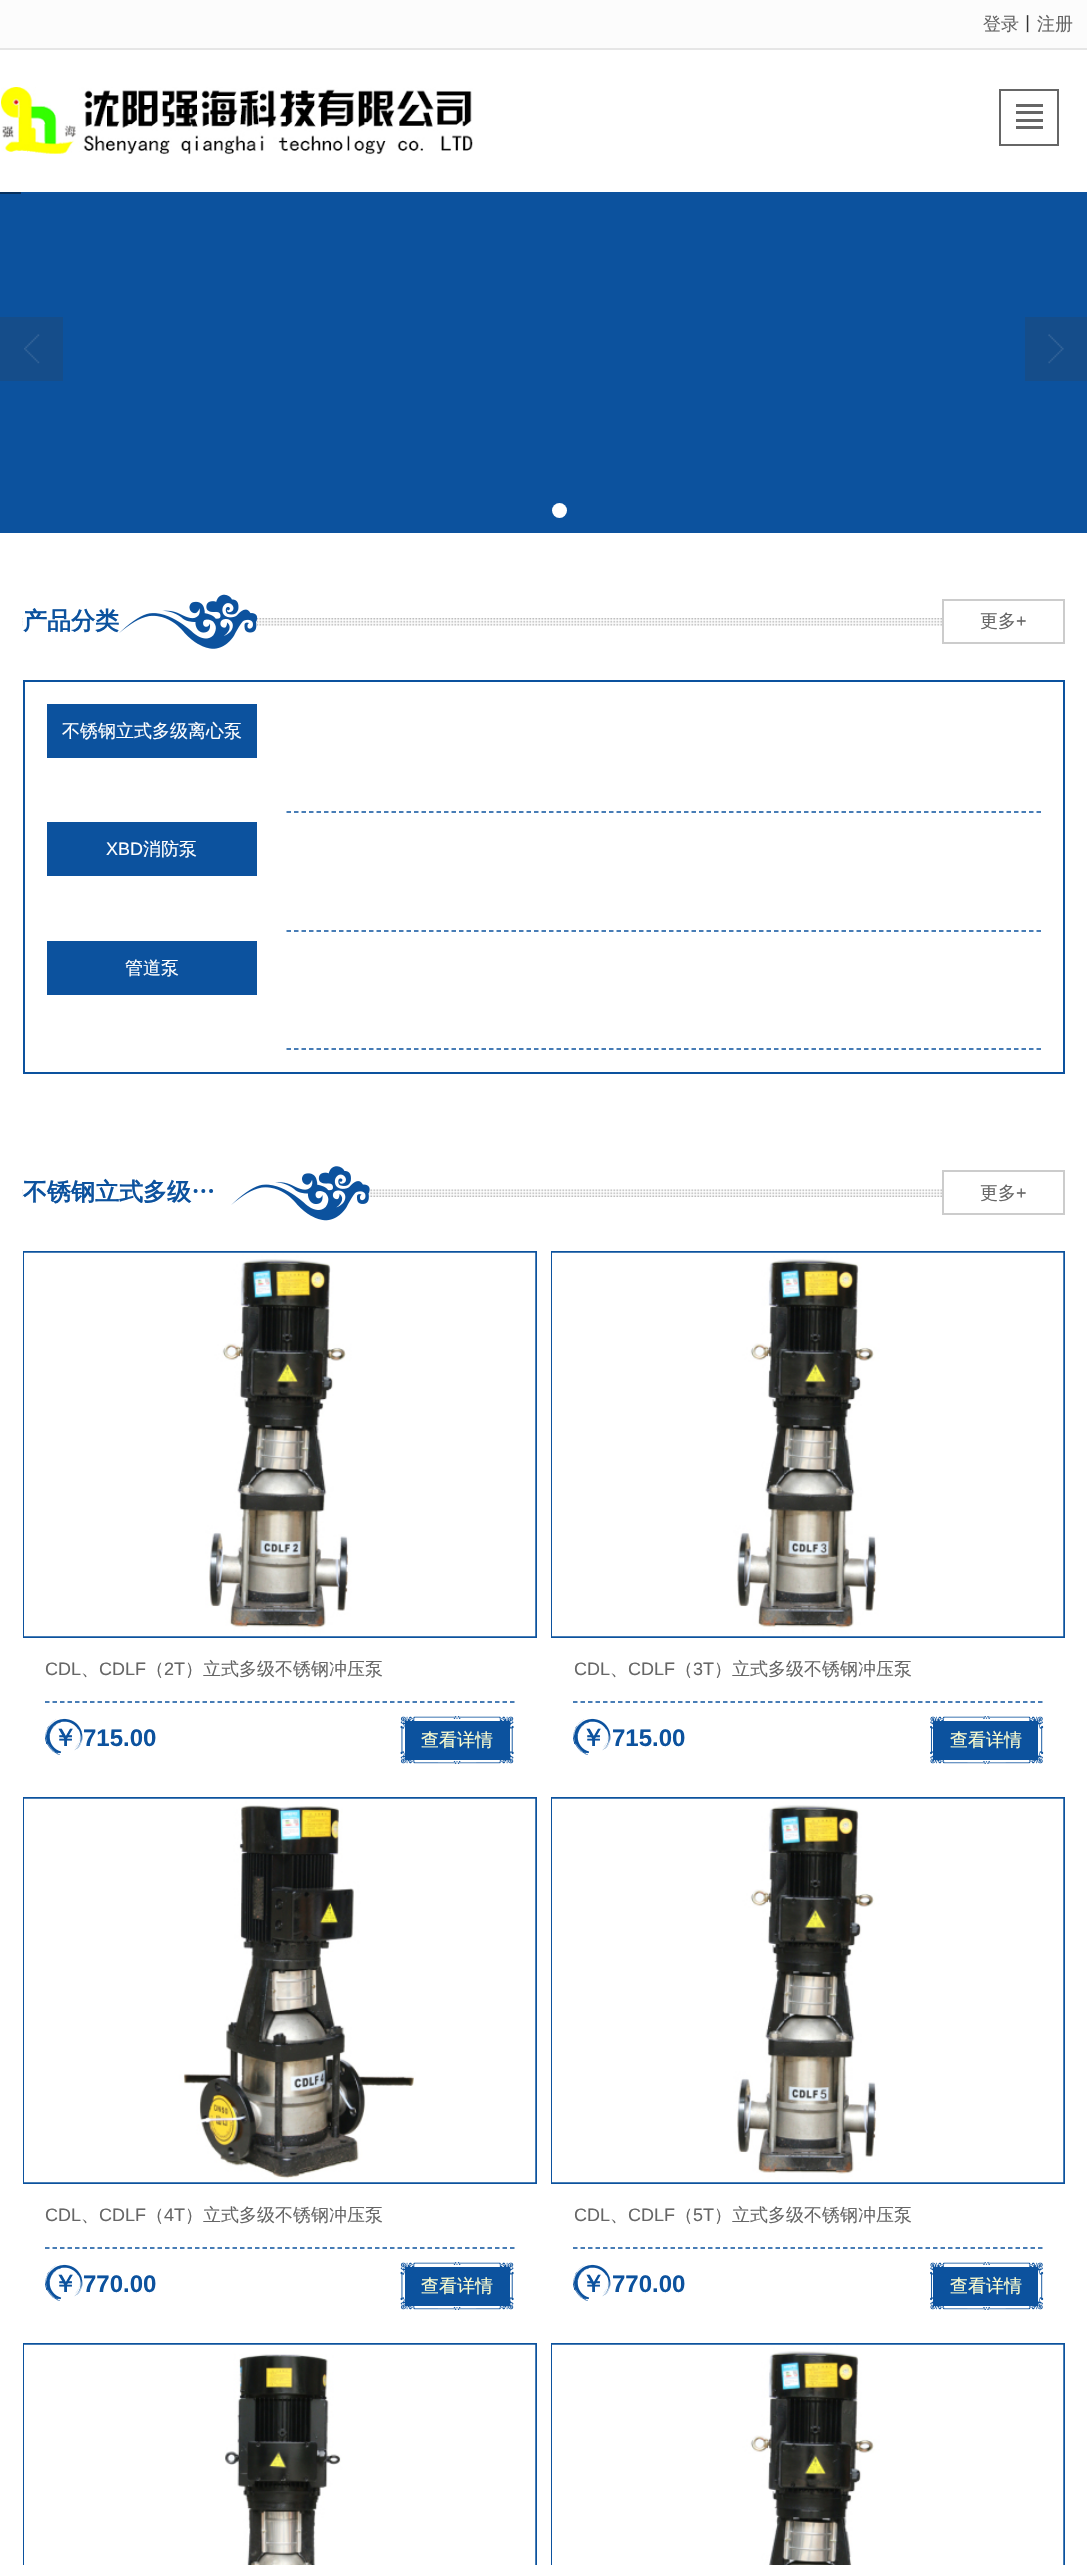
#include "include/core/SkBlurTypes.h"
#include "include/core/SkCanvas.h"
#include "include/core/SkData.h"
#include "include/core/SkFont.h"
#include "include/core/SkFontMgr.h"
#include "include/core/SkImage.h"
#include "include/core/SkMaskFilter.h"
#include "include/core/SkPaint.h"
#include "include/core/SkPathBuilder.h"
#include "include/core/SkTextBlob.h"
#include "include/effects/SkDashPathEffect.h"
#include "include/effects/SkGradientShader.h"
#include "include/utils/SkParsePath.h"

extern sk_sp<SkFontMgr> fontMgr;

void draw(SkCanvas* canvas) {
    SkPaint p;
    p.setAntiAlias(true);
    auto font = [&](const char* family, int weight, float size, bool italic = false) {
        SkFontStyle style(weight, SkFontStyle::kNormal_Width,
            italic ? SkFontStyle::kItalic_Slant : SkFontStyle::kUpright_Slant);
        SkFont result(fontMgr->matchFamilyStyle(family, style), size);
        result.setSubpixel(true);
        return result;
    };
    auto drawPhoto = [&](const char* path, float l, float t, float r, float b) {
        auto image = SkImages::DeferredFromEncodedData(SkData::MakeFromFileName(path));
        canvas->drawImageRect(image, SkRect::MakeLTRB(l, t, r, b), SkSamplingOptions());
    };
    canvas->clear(0xFFFFFFFF);
    p.setColor(0xFFFCFCFC);
    canvas->drawRect(SkRect::MakeLTRB(0, 0, 1087, 48), p);
    p.setColor(0xFFE6E6E6);
    canvas->drawRect(SkRect::MakeLTRB(0, 48, 1087, 50), p);
    auto font1 = font("WenQuanYi Zen Hei", 500, 18);
    p.setColor(0xFF666666);
    canvas->drawString("登录", 983, 30, font1, p);
    p.setColor(0xFF333333);
    canvas->drawString("丨", 1019, 30, font1, p);
    p.setColor(0xFF666666);
    canvas->drawString("注册", 1037, 30, font1, p);
    drawPhoto("media/1.png", 1, 87, 473, 155);
    p.setStyle(SkPaint::kStroke_Style);
    p.setStrokeWidth(2);
    canvas->drawRect(SkRect::MakeLTRB(1000, 90, 1058, 145), p);
    p.setStyle(SkPaint::kFill_Style);
    {
        const struct { float l, t, r, b; SkColor color; } items[] = {
            {1016, 104, 1043, 107, 0xFF666666},
            {1016, 111, 1043, 114, 0xFF666666},
            {1016, 119, 1043, 122, 0xFF666666},
            {1016, 126, 1043, 129, 0xFF666666},
            {0, 192, 1087, 533, 0xFF0C529E},
            {0, 192, 21, 194, 0xFF07315F},
            {0, 317, 63, 381, 0xFF154D8A},
        };
        for (auto [l, t, r, b, color] : items) {
            p.setColor(color);
            canvas->drawRect(SkRect::MakeLTRB(l, t, r, b), p);
        }
    }
    drawPhoto("media/2.png", 24, 334, 40, 364);
    canvas->drawRect(SkRect::MakeLTRB(1025, 317, 1087, 381), p);
    drawPhoto("media/3.png", 1048, 334, 1064, 364);
    p.setColor(0xFFFFFFFF);
    canvas->drawCircle(559.5f, 510.5f, 7.5f, p);
    drawPhoto("media/4.png", 22, 618, 942, 626);
    canvas->drawRect(SkRect::MakeLTRB(23, 618, 257, 626), p);
    auto font2 = font("WenQuanYi Zen Hei", 700, 24);
    p.setColor(0xFF0C529E);
    canvas->drawString("产品分类", 23, 629, font2, p);
    drawPhoto("media/5.png", 119, 594, 258, 649);
    p.setStyle(SkPaint::kStroke_Style);
    p.setColor(0xFFCCCCCC);
    canvas->drawRect(SkRect::MakeLTRB(943, 600, 1064, 643), p);
    p.setStyle(SkPaint::kFill_Style);
    p.setColor(0xFF666666);
    canvas->drawString("更多", 980, 627, font1, p);
    auto font3 = font("Liberation Sans", 400, 18);
    canvas->drawString("+", 1016, 627, font3, p);
    p.setStyle(SkPaint::kStroke_Style);
    p.setColor(0xFF0C529E);
    canvas->drawRect(SkRect::MakeLTRB(24, 681, 1064, 1073), p);
    p.setStyle(SkPaint::kFill_Style);
    canvas->drawRect(SkRect::MakeLTRB(47, 704, 257, 758), p);
    p.setColor(0xFFFFFFFF);
    canvas->drawString("不锈钢立式多级离心泵", 62, 737, font1, p);
    p.setStyle(SkPaint::kStroke_Style);
    p.setStrokeWidth(1.5f);
    p.setColor(0xFF0C529E);
    p.setPathEffect(SkDashPathEffect::Make({{4.5f, 3}}, 0));
    canvas->drawPath(SkPathBuilder().moveTo(286.5f, 812).lineTo(1041, 812).detach(), p);
    p.setPathEffect(nullptr);
    p.setStyle(SkPaint::kFill_Style);
    canvas->drawRect(SkRect::MakeLTRB(47, 822, 257, 876), p);
    p.setColor(0xFFFFFFFF);
    canvas->drawString("XBD", 106, 855, font3, p);
    canvas->drawString("消防泵", 143, 855, font1, p);
    p.setStyle(SkPaint::kStroke_Style);
    p.setColor(0xFF0C529E);
    p.setPathEffect(SkDashPathEffect::Make({{4.5f, 3}}, 0));
    canvas->drawPath(SkPathBuilder().moveTo(286.5f, 931).lineTo(1041, 931).detach(), p);
    p.setPathEffect(nullptr);
    p.setStyle(SkPaint::kFill_Style);
    canvas->drawRect(SkRect::MakeLTRB(47, 941, 257, 995), p);
    p.setColor(0xFFFFFFFF);
    canvas->drawString("管道泵", 125, 974, font1, p);
    p.setStyle(SkPaint::kStroke_Style);
    p.setColor(0xFF0C529E);
    p.setPathEffect(SkDashPathEffect::Make({{4.5f, 3}}, 0));
    canvas->drawPath(SkPathBuilder().moveTo(286.5f, 1049).lineTo(1041, 1049).detach(), p);
    p.setPathEffect(nullptr);
    drawPhoto("media/6.png", 22, 1189, 942, 1197);
    p.setStyle(SkPaint::kFill_Style);
    p.setColor(0xFFFFFFFF);
    canvas->drawRect(SkRect::MakeLTRB(23, 1189, 369, 1197), p);
    p.setColor(0xFF0C529E);
    canvas->drawString("不锈钢立式多级…", 23, 1200, font2, p);
    drawPhoto("media/7.png", 231, 1166, 370, 1221);
    p.setStyle(SkPaint::kStroke_Style);
    p.setStrokeWidth(2);
    p.setColor(0xFFCCCCCC);
    canvas->drawRect(SkRect::MakeLTRB(943, 1171, 1064, 1214), p);
    p.setStyle(SkPaint::kFill_Style);
    p.setColor(0xFF666666);
    canvas->drawString("更多", 980, 1199, font1, p);
    canvas->drawString("+", 1016, 1199, font3, p);
    p.setStyle(SkPaint::kStroke_Style);
    p.setColor(0xFF0C529E);
    canvas->drawRect(SkRect::MakeLTRB(24, 1252, 536, 1637), p);
    drawPhoto("media/8.png", 24, 1252, 536, 1637);
    p.setStrokeWidth(1.5f);
    p.setPathEffect(SkDashPathEffect::Make({{4.5f, 3}}, 0));
    canvas->drawPath(SkPathBuilder().moveTo(45, 1702).lineTo(514.5f, 1702).detach(), p);
    p.setPathEffect(nullptr);
    p.setStyle(SkPaint::kFill_Style);
    p.setColor(0xFF666666);
    canvas->drawString("CDL", 45, 1675, font3, p);
    canvas->drawString("CDLF", 99, 1675, font3, p);
    canvas->drawString("（", 146, 1675, font1, p);
    canvas->drawString("2T", 164, 1675, font3, p);
    canvas->drawString("）立式多级不锈钢冲压泵", 185, 1675, font1, p);
    canvas->drawString("、", 81, 1675, font1, p);
    drawPhoto("media/9.png", 45, 1718, 83, 1755);
    p.setColor(0xFF0C529E);
    canvas->drawString("￥", 53, 1746, font2, p);
    auto font4 = font("Liberation Sans", 700, 24);
    canvas->drawString("715.00", 83, 1746, font4, p);
    drawPhoto("media/10.png", 400, 1716, 514, 1764);
    canvas->drawRect(SkRect::MakeLTRB(405, 1721, 510, 1760), p);
    p.setColor(0xFFF8FBD0);
    canvas->drawString("查看详情", 421, 1746, font1, p);
    p.setStyle(SkPaint::kStroke_Style);
    p.setStrokeWidth(2);
    p.setColor(0xFF0C529E);
    canvas->drawRect(SkRect::MakeLTRB(552, 1252, 1064, 1637), p);
    drawPhoto("media/11.png", 552, 1252, 1064, 1637);
    p.setStrokeWidth(1.5f);
    p.setPathEffect(SkDashPathEffect::Make({{4.5f, 3}}, 0));
    canvas->drawPath(SkPathBuilder().moveTo(573, 1702).lineTo(1042.5f, 1702).detach(), p);
    p.setPathEffect(nullptr);
    p.setStyle(SkPaint::kFill_Style);
    p.setColor(0xFF666666);
    canvas->drawString("CDL", 574, 1675, font3, p);
    canvas->drawString("、", 610, 1675, font1, p);
    canvas->drawString("CDLF", 628, 1675, font3, p);
    canvas->drawString("（", 675, 1675, font1, p);
    canvas->drawString("3T", 693, 1675, font3, p);
    canvas->drawString("）立式多级不锈钢冲压泵", 714, 1675, font1, p);
    drawPhoto("media/9.png", 573, 1718, 611, 1755);
    p.setColor(0xFF0C529E);
    canvas->drawString("￥", 581, 1746, font2, p);
    canvas->drawString("715.00", 612, 1746, font4, p);
    drawPhoto("media/12.png", 930, 1716, 1044, 1764);
    canvas->drawRect(SkRect::MakeLTRB(933, 1721, 1038, 1760), p);
    p.setColor(0xFFF8FBD0);
    canvas->drawString("查看详情", 950, 1746, font1, p);
    p.setStyle(SkPaint::kStroke_Style);
    p.setStrokeWidth(2);
    p.setColor(0xFF0C529E);
    canvas->drawRect(SkRect::MakeLTRB(24, 1798, 536, 2183), p);
    drawPhoto("media/13.png", 24, 1798, 536, 2183);
    p.setStrokeWidth(1.5f);
    p.setPathEffect(SkDashPathEffect::Make({{4.5f, 3}}, 0));
    canvas->drawPath(SkPathBuilder().moveTo(45, 2248).lineTo(514.5f, 2248).detach(), p);
    p.setPathEffect(nullptr);
    p.setStyle(SkPaint::kFill_Style);
    p.setColor(0xFF666666);
    canvas->drawString("CDL", 45, 2221, font3, p);
    canvas->drawString("CDLF", 99, 2221, font3, p);
    canvas->drawString("（", 146, 2221, font1, p);
    canvas->drawString("4T", 164, 2221, font3, p);
    canvas->drawString("）立式多级不锈钢冲压泵", 185, 2221, font1, p);
    canvas->drawString("、", 81, 2221, font1, p);
    drawPhoto("media/9.png", 45, 2264, 83, 2301);
    p.setColor(0xFF0C529E);
    canvas->drawString("￥", 53, 2292, font2, p);
    canvas->drawString("770.00", 83, 2292, font4, p);
    drawPhoto("media/10.png", 400, 2262, 514, 2310);
    canvas->drawRect(SkRect::MakeLTRB(405, 2267, 510, 2306), p);
    p.setColor(0xFFF8FBD0);
    canvas->drawString("查看详情", 421, 2292, font1, p);
    p.setStyle(SkPaint::kStroke_Style);
    p.setStrokeWidth(2);
    p.setColor(0xFF0C529E);
    canvas->drawRect(SkRect::MakeLTRB(552, 1798, 1064, 2183), p);
    drawPhoto("media/14.png", 552, 1798, 1064, 2183);
    p.setStrokeWidth(1.5f);
    p.setPathEffect(SkDashPathEffect::Make({{4.5f, 3}}, 0));
    canvas->drawPath(SkPathBuilder().moveTo(573, 2248).lineTo(1042.5f, 2248).detach(), p);
    p.setPathEffect(nullptr);
    p.setStyle(SkPaint::kFill_Style);
    p.setColor(0xFF666666);
    canvas->drawString("CDL", 574, 2221, font3, p);
    canvas->drawString("、", 610, 2221, font1, p);
    canvas->drawString("CDLF", 628, 2221, font3, p);
    canvas->drawString("（", 675, 2221, font1, p);
    canvas->drawString("5T", 693, 2221, font3, p);
    canvas->drawString("）立式多级不锈钢冲压泵", 714, 2221, font1, p);
    drawPhoto("media/9.png", 573, 2264, 611, 2301);
    p.setColor(0xFF0C529E);
    canvas->drawString("￥", 581, 2292, font2, p);
    canvas->drawString("770.00", 612, 2292, font4, p);
    drawPhoto("media/12.png", 930, 2262, 1044, 2310);
    canvas->drawRect(SkRect::MakeLTRB(933, 2267, 1038, 2306), p);
    p.setColor(0xFFF8FBD0);
    canvas->drawString("查看详情", 950, 2292, font1, p);
    p.setStyle(SkPaint::kStroke_Style);
    p.setStrokeWidth(2);
    p.setColor(0xFF0C529E);
    canvas->drawRect(SkRect::MakeLTRB(24, 2344, 536, 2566), p);
    drawPhoto("media/15.png", 24, 2344, 536, 2565);
    canvas->drawRect(SkRect::MakeLTRB(552, 2344, 1064, 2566), p);
    drawPhoto("media/16.png", 552, 2344, 1064, 2565);
}
